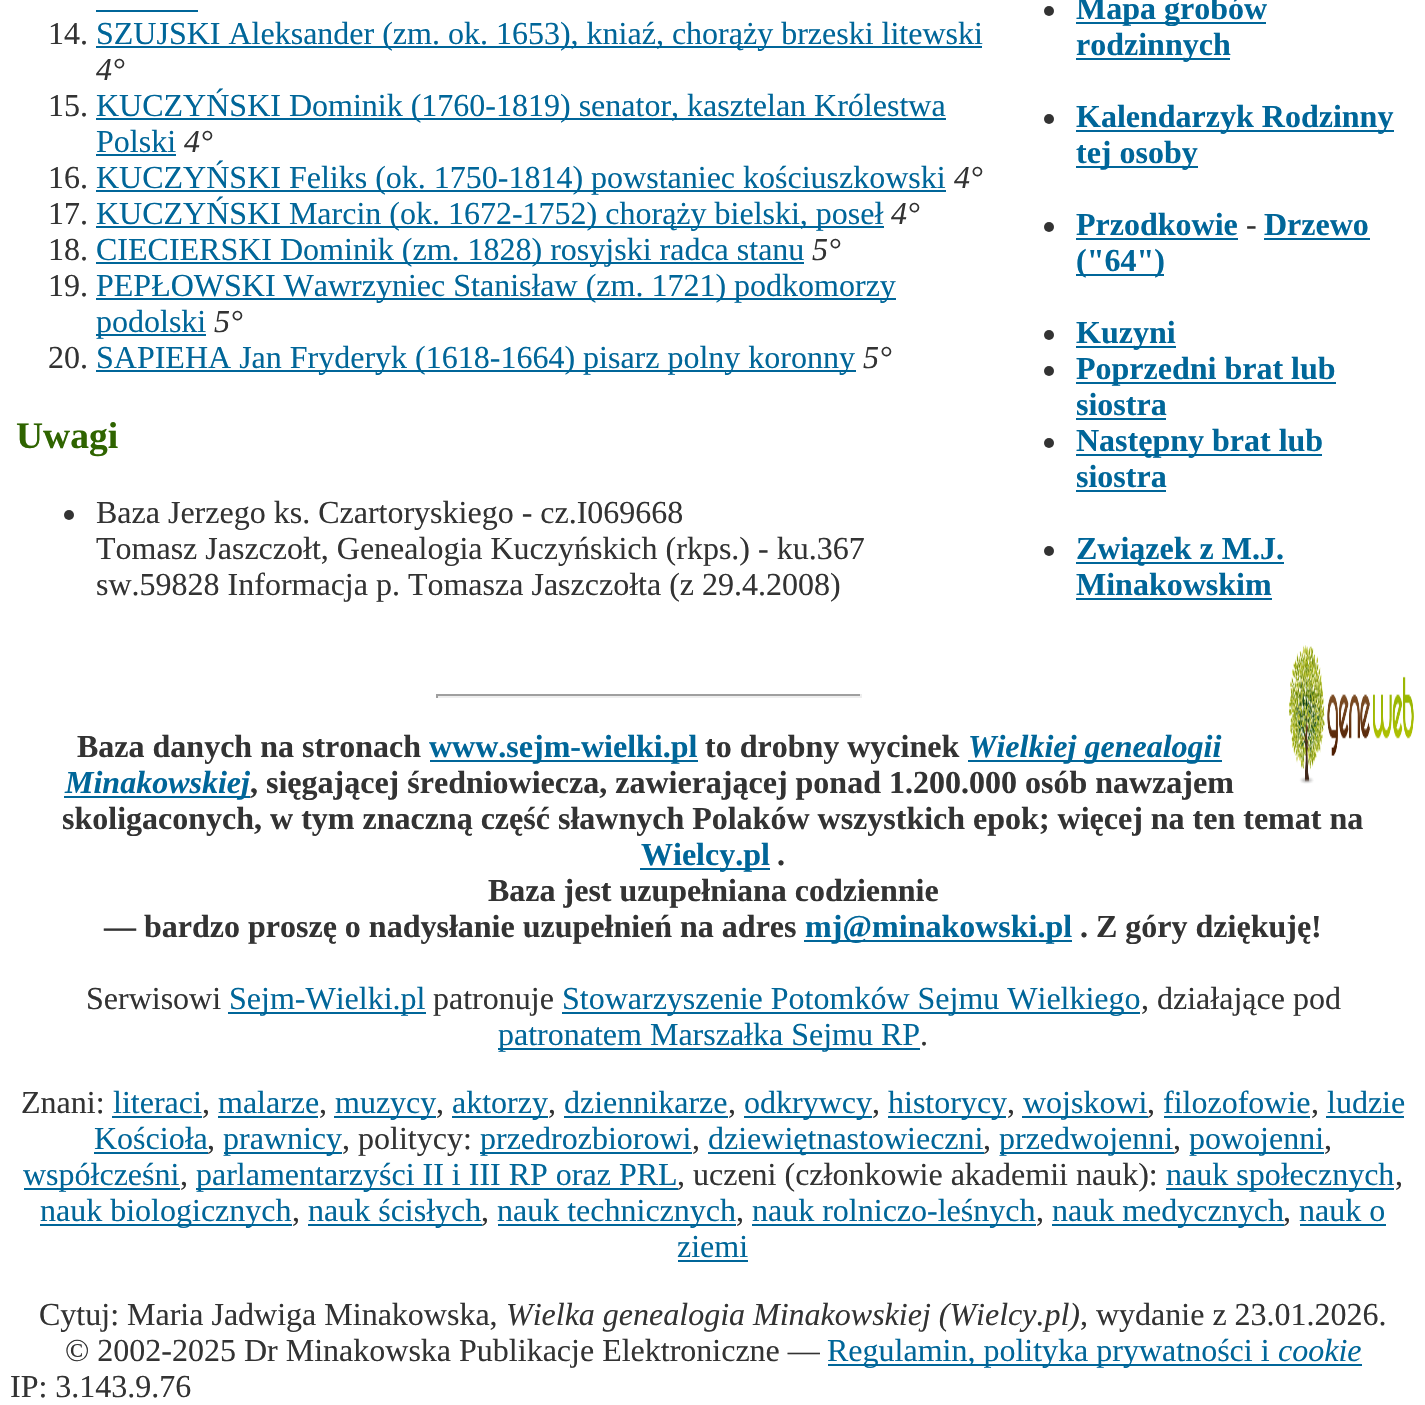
#include "include/core/SkBlurTypes.h"
#include "include/core/SkCanvas.h"
#include "include/core/SkData.h"
#include "include/core/SkFont.h"
#include "include/core/SkFontMgr.h"
#include "include/core/SkImage.h"
#include "include/core/SkMaskFilter.h"
#include "include/core/SkPaint.h"
#include "include/core/SkPathBuilder.h"
#include "include/core/SkTextBlob.h"
#include "include/effects/SkDashPathEffect.h"
#include "include/effects/SkGradientShader.h"
#include "include/utils/SkParsePath.h"

extern sk_sp<SkFontMgr> fontMgr;

void draw(SkCanvas* canvas) {
    SkPaint p;
    p.setAntiAlias(true);
    auto font = [&](const char* family, int weight, float size, bool italic = false) {
        SkFontStyle style(weight, SkFontStyle::kNormal_Width,
            italic ? SkFontStyle::kItalic_Slant : SkFontStyle::kUpright_Slant);
        SkFont result(fontMgr->matchFamilyStyle(family, style), size);
        result.setSubpixel(true);
        return result;
    };
    auto drawPhoto = [&](const char* path, float l, float t, float r, float b) {
        auto image = SkImages::DeferredFromEncodedData(SkData::MakeFromFileName(path));
        canvas->drawImageRect(image, SkRect::MakeLTRB(l, t, r, b), SkSamplingOptions());
    };
    canvas->clear(0xFFFFFFFF);
    p.setColor(0xFF006699);
    canvas->drawRect(SkRect::MakeLTRB(96, 10, 198, 12), p);
    auto font1 = font("Liberation Serif", 400, 32);
    p.setColor(0xFF333333);
    canvas->drawString("14.", 48, 44, font1, p);
    p.setColor(0xFF006699);
    canvas->drawRect(SkRect::MakeLTRB(96, 46, 982, 48), p);
    canvas->drawString("SZUJSKI Aleksander (zm. ok. 1653), kniaź, chorąży brzeski litewski", 96, 44, font1, p);
    auto font2 = font("Liberation Serif", 400, 32, true);
    p.setColor(0xFF333333);
    canvas->drawString("4°", 96, 80, font2, p);
    canvas->drawString("15.", 48, 116, font1, p);
    p.setColor(0xFF006699);
    canvas->drawRect(SkRect::MakeLTRB(96, 118, 946, 120), p);
    canvas->drawString("KUCZYŃSKI Dominik (1760-1819) senator, kasztelan Królestwa", 96, 116, font1, p);
    canvas->drawString("Polski", 96, 152, font1, p);
    canvas->drawRect(SkRect::MakeLTRB(96, 154, 176, 156), p);
    p.setColor(0xFF333333);
    canvas->drawString("4°", 184, 152, font2, p);
    canvas->drawString("16.", 48, 188, font1, p);
    p.setColor(0xFF006699);
    canvas->drawRect(SkRect::MakeLTRB(96, 190, 946, 192), p);
    canvas->drawString("KUCZYŃSKI Feliks (ok. 1750-1814) powstaniec kościuszkowski", 96, 188, font1, p);
    p.setColor(0xFF333333);
    canvas->drawString("4°", 954, 188, font2, p);
    canvas->drawString("17.", 48, 224, font1, p);
    p.setColor(0xFF006699);
    canvas->drawRect(SkRect::MakeLTRB(96, 226, 884, 228), p);
    canvas->drawString("KUCZYŃSKI Marcin (ok. 1672-1752) chorąży bielski, poseł", 96, 224, font1, p);
    p.setColor(0xFF333333);
    canvas->drawString("4°", 891, 224, font2, p);
    canvas->drawString("18.", 48, 260, font1, p);
    p.setColor(0xFF006699);
    canvas->drawRect(SkRect::MakeLTRB(96, 262, 804, 264), p);
    canvas->drawString("CIECIERSKI Dominik (zm. 1828) rosyjski radca stanu", 96, 260, font1, p);
    p.setColor(0xFF333333);
    canvas->drawString("5°", 812, 260, font2, p);
    canvas->drawString("19.", 48, 296, font1, p);
    p.setColor(0xFF006699);
    canvas->drawRect(SkRect::MakeLTRB(96, 298, 896, 300), p);
    canvas->drawString("PEPŁOWSKI Wawrzyniec Stanisław (zm. 1721) podkomorzy", 96, 296, font1, p);
    canvas->drawRect(SkRect::MakeLTRB(96, 334, 206, 336), p);
    canvas->drawString("podolski", 96, 332, font1, p);
    p.setColor(0xFF333333);
    canvas->drawString("5°", 214, 332, font2, p);
    canvas->drawString("20.", 48, 368, font1, p);
    p.setColor(0xFF006699);
    canvas->drawRect(SkRect::MakeLTRB(96, 370, 856, 372), p);
    canvas->drawString("SAPIEHA Jan Fryderyk (1618-1664) pisarz polny koronny", 96, 368, font1, p);
    p.setColor(0xFF333333);
    canvas->drawString("5°", 863, 368, font2, p);
    auto font3 = font("Liberation Serif", 700, 37.5f);
    p.setColor(0xFF2F6400);
    canvas->drawString("Uwagi", 16, 448, font3, p);
    p.setColor(0xFF333333);
    canvas->drawCircle(69, 515, 5, p);
    {
        const struct { const char* s; float x, y; } items[] = {
            {"Baza Jerzego ks. Czartoryskiego - cz.I069668", 96, 523},
            {"Tomasz Jaszczołt, Genealogia Kuczyńskich (rkps.) - ku.367", 96, 559},
            {"sw.59828 Informacja p. Tomasza Jaszczołta (z 29.4.2008)", 96, 595},
        };
        for (auto [s, x, y] : items) {
            canvas->drawString(s, x, y, font1, p);
        }
    }
    canvas->drawCircle(1049, 11, 5, p);
    p.setColor(0xFF006699);
    canvas->drawRect(SkRect::MakeLTRB(1076, 22, 1266, 24), p);
    auto font4 = font("Liberation Serif", 700, 32);
    canvas->drawString("Mapa grobów", 1076, 19, font4, p);
    canvas->drawRect(SkRect::MakeLTRB(1076, 58, 1230, 60), p);
    canvas->drawString("rodzinnych", 1076, 55, font4, p);
    p.setColor(0xFF333333);
    canvas->drawCircle(1049, 119, 5, p);
    p.setColor(0xFF006699);
    canvas->drawRect(SkRect::MakeLTRB(1076, 130, 1394, 132), p);
    canvas->drawString("Kalendarzyk Rodzinny", 1076, 127, font4, p);
    canvas->drawRect(SkRect::MakeLTRB(1076, 166, 1198, 168), p);
    canvas->drawString("tej osoby", 1076, 163, font4, p);
    p.setColor(0xFF333333);
    canvas->drawCircle(1049, 227, 5, p);
    p.setColor(0xFF006699);
    canvas->drawString("Przodkowie", 1076, 235, font4, p);
    canvas->drawRect(SkRect::MakeLTRB(1076, 238, 1238, 240), p);
    p.setColor(0xFF333333);
    canvas->drawString("-", 1246, 235, font1, p);
    p.setColor(0xFF006699);
    canvas->drawString("Drzewo", 1264, 235, font4, p);
    canvas->drawRect(SkRect::MakeLTRB(1264, 238, 1370, 240), p);
    canvas->drawRect(SkRect::MakeLTRB(1076, 274, 1164, 276), p);
    canvas->drawString("(\"64\")", 1076, 271, font4, p);
    p.setColor(0xFF333333);
    canvas->drawCircle(1049, 335, 5, p);
    p.setColor(0xFF006699);
    canvas->drawRect(SkRect::MakeLTRB(1076, 346, 1176, 348), p);
    canvas->drawString("Kuzyni", 1076, 343, font4, p);
    p.setColor(0xFF333333);
    canvas->drawCircle(1049, 371, 5, p);
    p.setColor(0xFF006699);
    canvas->drawRect(SkRect::MakeLTRB(1076, 382, 1336, 384), p);
    canvas->drawString("Poprzedni brat lub", 1076, 379, font4, p);
    canvas->drawString("siostra", 1076, 415, font4, p);
    canvas->drawRect(SkRect::MakeLTRB(1076, 418, 1166, 420), p);
    p.setColor(0xFF333333);
    canvas->drawCircle(1049, 443, 5, p);
    p.setColor(0xFF006699);
    canvas->drawRect(SkRect::MakeLTRB(1076, 454, 1322, 456), p);
    canvas->drawString("Następny brat lub", 1076, 451, font4, p);
    canvas->drawString("siostra", 1076, 487, font4, p);
    canvas->drawRect(SkRect::MakeLTRB(1076, 490, 1166, 492), p);
    p.setColor(0xFF333333);
    canvas->drawCircle(1049, 551, 5, p);
    p.setColor(0xFF006699);
    canvas->drawRect(SkRect::MakeLTRB(1076, 562, 1284, 564), p);
    canvas->drawString("Związek z M.J.", 1076, 559, font4, p);
    canvas->drawString("Minakowskim", 1076, 595, font4, p);
    {
        const struct { float l, t, r, b; SkColor color; } items[] = {
            {1076, 598, 1272, 600, 0xFF006699},
            {436, 694, 862, 696, 0xFF9F9F9F},
            {860, 694, 862, 698, 0xFFEEEEEE},
            {436, 696, 862, 698, 0xFFEEEEEE},
            {436, 694, 438, 698, 0xFF9F9F9F},
        };
        for (auto [l, t, r, b, color] : items) {
            p.setColor(color);
            canvas->drawRect(SkRect::MakeLTRB(l, t, r, b), p);
        }
    }
    drawPhoto("media/1.png", 1289, 645, 1414, 784);
    p.setColor(0xFF333333);
    canvas->drawString("Baza danych na stronach", 77, 757, font4, p);
    p.setColor(0xFF006699);
    canvas->drawRect(SkRect::MakeLTRB(430, 760, 698, 762), p);
    canvas->drawString("www.sejm-wielki.pl", 429, 757, font4, p);
    p.setColor(0xFF333333);
    canvas->drawString("to drobny wycinek", 705, 757, font4, p);
    p.setColor(0xFF006699);
    canvas->drawRect(SkRect::MakeLTRB(968, 760, 1222, 762), p);
    auto font5 = font("Liberation Serif", 700, 32, true);
    canvas->drawString("Wielkiej genealogii", 968, 757, font5, p);
    canvas->drawRect(SkRect::MakeLTRB(64, 796, 250, 798), p);
    canvas->drawString("Minakowskiej", 65, 793, font5, p);
    p.setColor(0xFF333333);
    canvas->drawString(", sięgającej średniowiecza, zawierającej ponad 1.200.000 osób nawzajem", 250, 793, font4, p);
    canvas->drawString("skoligaconych, w tym znaczną część sławnych Polaków wszystkich epok; więcej na ten temat na", 62, 829, font4, p);
    p.setColor(0xFF006699);
    canvas->drawRect(SkRect::MakeLTRB(640, 868, 770, 870), p);
    canvas->drawString("Wielcy.pl", 641, 865, font4, p);
    p.setColor(0xFF333333);
    {
        const struct { const char* s; float x, y; } items[] = {
            {".", 777, 865},
            {"Baza jest uzupełniana codziennie", 488, 901},
            {"— bardzo proszę o nadysłanie uzupełnień na adres", 104, 937},
        };
        for (auto [s, x, y] : items) {
            canvas->drawString(s, x, y, font4, p);
        }
    }
    p.setColor(0xFF006699);
    canvas->drawRect(SkRect::MakeLTRB(804, 940, 1072, 942), p);
    canvas->drawString("mj@minakowski.pl", 805, 937, font4, p);
    p.setColor(0xFF333333);
    canvas->drawString(". Z góry dziękuję!", 1080, 937, font4, p);
    canvas->drawString("Serwisowi", 86, 1009, font1, p);
    p.setColor(0xFF006699);
    canvas->drawRect(SkRect::MakeLTRB(228, 1012, 426, 1014), p);
    canvas->drawString("Sejm-Wielki.pl", 229, 1009, font1, p);
    p.setColor(0xFF333333);
    canvas->drawString("patronuje", 433, 1009, font1, p);
    p.setColor(0xFF006699);
    canvas->drawRect(SkRect::MakeLTRB(562, 1012, 1140, 1014), p);
    canvas->drawString("Stowarzyszenie Potomków Sejmu Wielkiego", 562, 1009, font1, p);
    p.setColor(0xFF333333);
    canvas->drawString(", działające pod", 1141, 1009, font1, p);
    p.setColor(0xFF006699);
    canvas->drawRect(SkRect::MakeLTRB(498, 1048, 920, 1050), p);
    canvas->drawString("patronatem Marszałka Sejmu RP", 498, 1045, font1, p);
    p.setColor(0xFF333333);
    canvas->drawString(".", 920, 1045, font1, p);
    canvas->drawString("Znani:", 21, 1113, font1, p);
    p.setColor(0xFF006699);
    canvas->drawString("literaci", 113, 1113, font1, p);
    canvas->drawRect(SkRect::MakeLTRB(112, 1116, 202, 1118), p);
    p.setColor(0xFF333333);
    canvas->drawString(",", 202, 1113, font1, p);
    p.setColor(0xFF006699);
    canvas->drawString("malarze", 218, 1113, font1, p);
    canvas->drawRect(SkRect::MakeLTRB(218, 1116, 318, 1118), p);
    p.setColor(0xFF333333);
    canvas->drawString(",", 319, 1113, font1, p);
    p.setColor(0xFF006699);
    canvas->drawRect(SkRect::MakeLTRB(334, 1116, 436, 1118), p);
    canvas->drawString("muzycy", 335, 1113, font1, p);
    p.setColor(0xFF333333);
    canvas->drawString(",", 436, 1113, font1, p);
    p.setColor(0xFF006699);
    canvas->drawRect(SkRect::MakeLTRB(452, 1116, 548, 1118), p);
    canvas->drawString("aktorzy", 452, 1113, font1, p);
    p.setColor(0xFF333333);
    canvas->drawString(",", 548, 1113, font1, p);
    p.setColor(0xFF006699);
    canvas->drawString("dziennikarze", 564, 1113, font1, p);
    canvas->drawRect(SkRect::MakeLTRB(564, 1116, 728, 1118), p);
    p.setColor(0xFF333333);
    canvas->drawString(",", 728, 1113, font1, p);
    p.setColor(0xFF006699);
    canvas->drawRect(SkRect::MakeLTRB(744, 1116, 872, 1118), p);
    canvas->drawString("odkrywcy", 744, 1113, font1, p);
    p.setColor(0xFF333333);
    canvas->drawString(",", 872, 1113, font1, p);
    p.setColor(0xFF006699);
    canvas->drawRect(SkRect::MakeLTRB(888, 1116, 1006, 1118), p);
    canvas->drawString("historycy", 888, 1113, font1, p);
    p.setColor(0xFF333333);
    canvas->drawString(",", 1007, 1113, font1, p);
    p.setColor(0xFF006699);
    canvas->drawRect(SkRect::MakeLTRB(1022, 1116, 1148, 1118), p);
    canvas->drawString("wojskowi", 1023, 1113, font1, p);
    p.setColor(0xFF333333);
    canvas->drawString(",", 1147, 1113, font1, p);
    p.setColor(0xFF006699);
    canvas->drawString("filozofowie", 1163, 1113, font1, p);
    canvas->drawRect(SkRect::MakeLTRB(1164, 1116, 1310, 1118), p);
    p.setColor(0xFF333333);
    canvas->drawString(",", 1311, 1113, font1, p);
    p.setColor(0xFF006699);
    canvas->drawString("ludzie", 1327, 1113, font1, p);
    canvas->drawRect(SkRect::MakeLTRB(1326, 1116, 1404, 1118), p);
    canvas->drawString("Kościoła", 94, 1149, font1, p);
    canvas->drawRect(SkRect::MakeLTRB(94, 1152, 208, 1154), p);
    p.setColor(0xFF333333);
    canvas->drawString(",", 207, 1149, font1, p);
    p.setColor(0xFF006699);
    canvas->drawRect(SkRect::MakeLTRB(224, 1152, 342, 1154), p);
    canvas->drawString("prawnicy", 223, 1149, font1, p);
    p.setColor(0xFF333333);
    canvas->drawString(", politycy:", 342, 1149, font1, p);
    p.setColor(0xFF006699);
    canvas->drawRect(SkRect::MakeLTRB(480, 1152, 692, 1154), p);
    canvas->drawString("przedrozbiorowi", 480, 1149, font1, p);
    p.setColor(0xFF333333);
    canvas->drawString(",", 692, 1149, font1, p);
    p.setColor(0xFF006699);
    canvas->drawRect(SkRect::MakeLTRB(708, 1152, 984, 1154), p);
    canvas->drawString("dziewiętnastowieczni", 708, 1149, font1, p);
    p.setColor(0xFF333333);
    canvas->drawString(",", 983, 1149, font1, p);
    p.setColor(0xFF006699);
    canvas->drawRect(SkRect::MakeLTRB(1000, 1152, 1174, 1154), p);
    canvas->drawString("przedwojenni", 999, 1149, font1, p);
    p.setColor(0xFF333333);
    canvas->drawString(",", 1173, 1149, font1, p);
    p.setColor(0xFF006699);
    canvas->drawRect(SkRect::MakeLTRB(1190, 1152, 1324, 1154), p);
    canvas->drawString("powojenni", 1189, 1149, font1, p);
    p.setColor(0xFF333333);
    canvas->drawString(",", 1324, 1149, font1, p);
    p.setColor(0xFF006699);
    canvas->drawRect(SkRect::MakeLTRB(24, 1188, 180, 1190), p);
    canvas->drawString("współcześni", 23, 1185, font1, p);
    p.setColor(0xFF333333);
    canvas->drawString(",", 180, 1185, font1, p);
    p.setColor(0xFF006699);
    canvas->drawRect(SkRect::MakeLTRB(196, 1188, 678, 1190), p);
    canvas->drawString("parlamentarzyści II i III RP oraz PRL", 196, 1185, font1, p);
    p.setColor(0xFF333333);
    canvas->drawString(", uczeni (członkowie akademii nauk):", 677, 1185, font1, p);
    p.setColor(0xFF006699);
    canvas->drawRect(SkRect::MakeLTRB(1166, 1188, 1394, 1190), p);
    canvas->drawString("nauk społecznych", 1166, 1185, font1, p);
    p.setColor(0xFF333333);
    canvas->drawString(",", 1395, 1185, font1, p);
    p.setColor(0xFF006699);
    canvas->drawRect(SkRect::MakeLTRB(40, 1224, 292, 1226), p);
    canvas->drawString("nauk biologicznych", 40, 1221, font1, p);
    p.setColor(0xFF333333);
    canvas->drawString(",", 292, 1221, font1, p);
    p.setColor(0xFF006699);
    canvas->drawRect(SkRect::MakeLTRB(308, 1224, 482, 1226), p);
    canvas->drawString("nauk ścisłych", 308, 1221, font1, p);
    p.setColor(0xFF333333);
    canvas->drawString(",", 481, 1221, font1, p);
    p.setColor(0xFF006699);
    canvas->drawRect(SkRect::MakeLTRB(498, 1224, 736, 1226), p);
    canvas->drawString("nauk technicznych", 497, 1221, font1, p);
    p.setColor(0xFF333333);
    canvas->drawString(",", 736, 1221, font1, p);
    p.setColor(0xFF006699);
    canvas->drawRect(SkRect::MakeLTRB(752, 1224, 1036, 1226), p);
    canvas->drawString("nauk rolniczo-leśnych", 752, 1221, font1, p);
    p.setColor(0xFF333333);
    canvas->drawString(",", 1036, 1221, font1, p);
    p.setColor(0xFF006699);
    canvas->drawRect(SkRect::MakeLTRB(1052, 1224, 1284, 1226), p);
    canvas->drawString("nauk medycznych", 1052, 1221, font1, p);
    p.setColor(0xFF333333);
    canvas->drawString(",", 1283, 1221, font1, p);
    p.setColor(0xFF006699);
    canvas->drawString("nauk o", 1299, 1221, font1, p);
    canvas->drawRect(SkRect::MakeLTRB(1300, 1224, 1386, 1226), p);
    canvas->drawString("ziemi", 677, 1257, font1, p);
    canvas->drawRect(SkRect::MakeLTRB(678, 1260, 748, 1262), p);
    p.setColor(0xFF333333);
    canvas->drawString("Cytuj: Maria Jadwiga Minakowska,", 39, 1325, font1, p);
    canvas->drawString("Wielka genealogia Minakowskiej (Wielcy.pl)", 506, 1325, font2, p);
    canvas->drawString(", wydanie z 23.01.2026.", 1080, 1325, font1, p);
    canvas->drawString("© 2002-2025 Dr Minakowska Publikacje Elektroniczne —", 65, 1361, font1, p);
    p.setColor(0xFF006699);
    canvas->drawRect(SkRect::MakeLTRB(828, 1364, 1362, 1366), p);
    canvas->drawString("Regulamin, polityka prywatności i", 827, 1361, font1, p);
    canvas->drawString("cookie", 1278, 1361, font2, p);
    p.setColor(0xFF333333);
    canvas->drawString("IP: 3.143.9.76", 10, 1397, font1, p);
}
